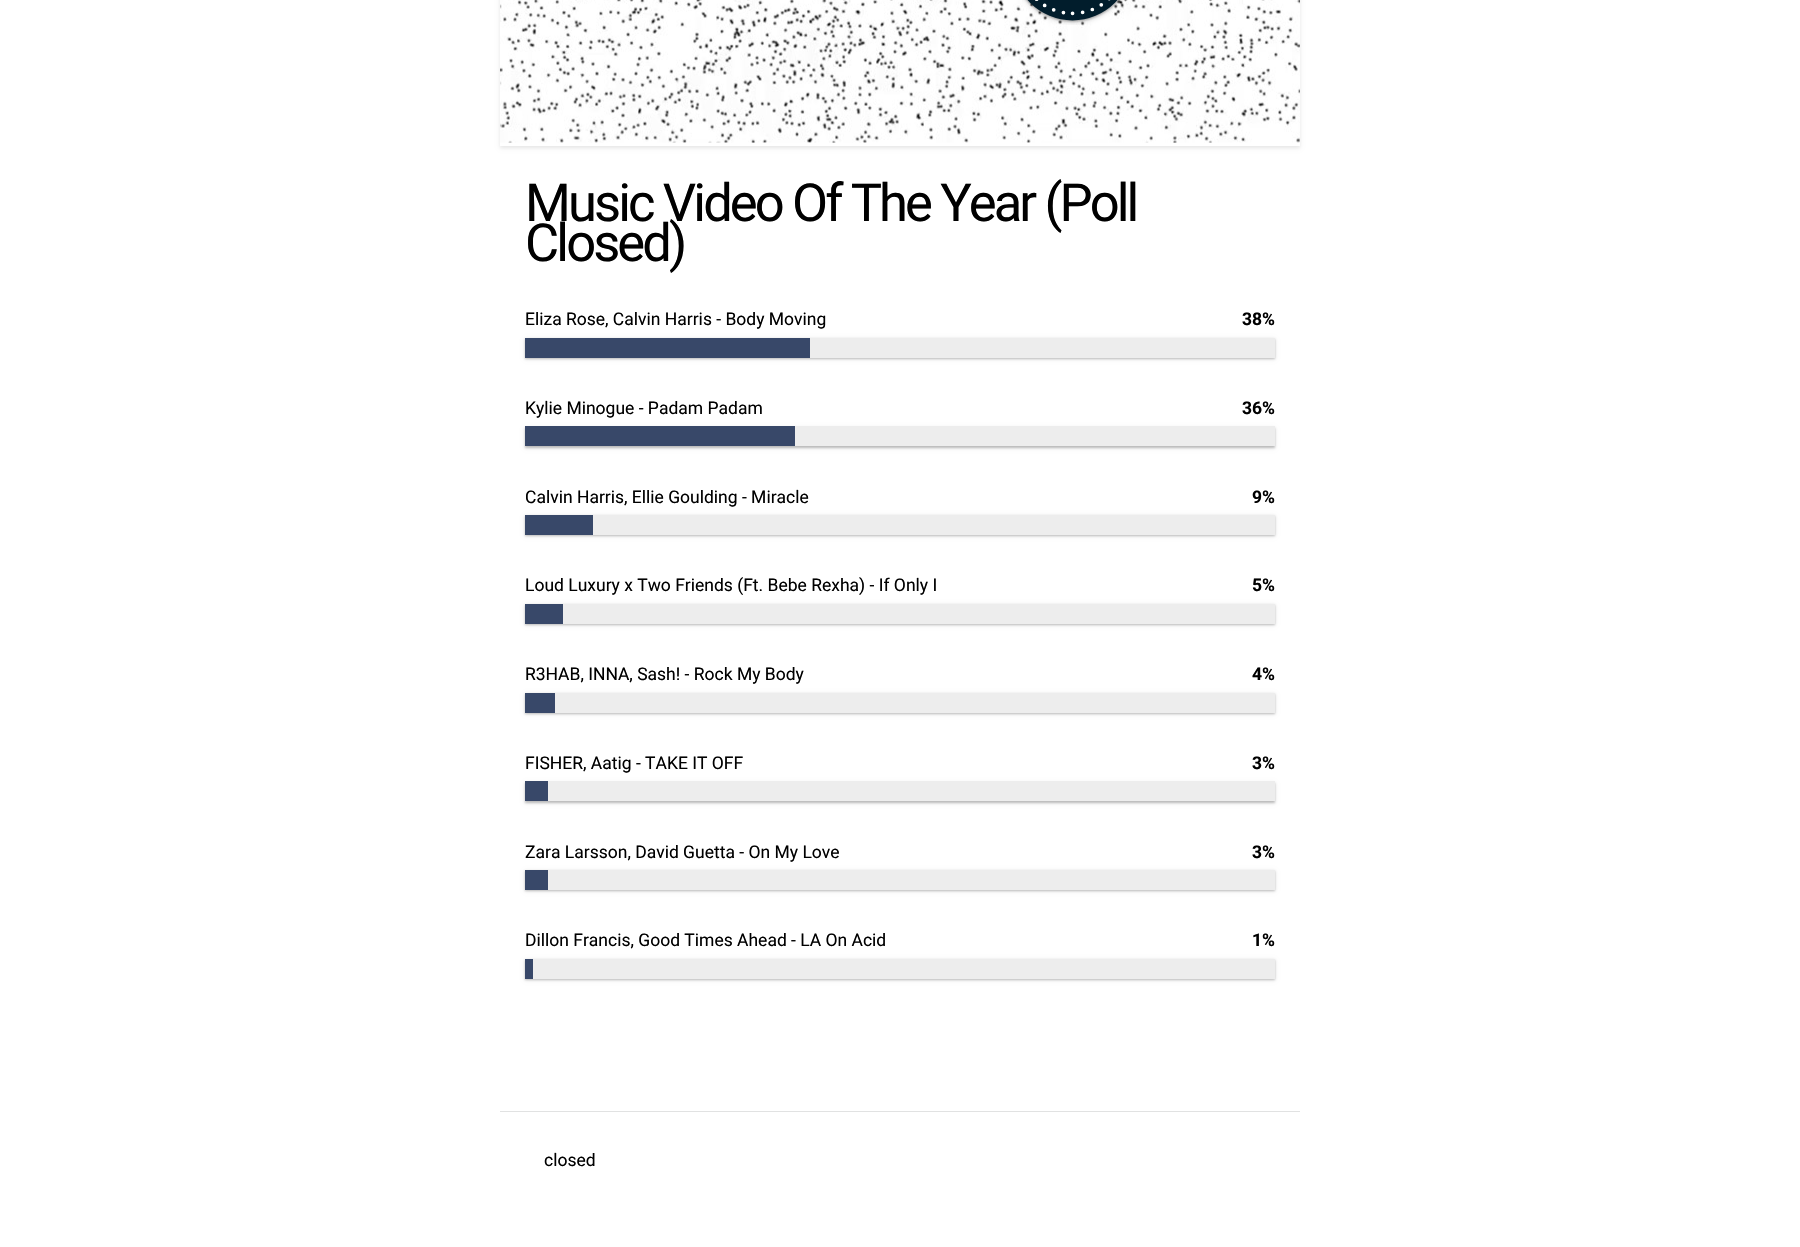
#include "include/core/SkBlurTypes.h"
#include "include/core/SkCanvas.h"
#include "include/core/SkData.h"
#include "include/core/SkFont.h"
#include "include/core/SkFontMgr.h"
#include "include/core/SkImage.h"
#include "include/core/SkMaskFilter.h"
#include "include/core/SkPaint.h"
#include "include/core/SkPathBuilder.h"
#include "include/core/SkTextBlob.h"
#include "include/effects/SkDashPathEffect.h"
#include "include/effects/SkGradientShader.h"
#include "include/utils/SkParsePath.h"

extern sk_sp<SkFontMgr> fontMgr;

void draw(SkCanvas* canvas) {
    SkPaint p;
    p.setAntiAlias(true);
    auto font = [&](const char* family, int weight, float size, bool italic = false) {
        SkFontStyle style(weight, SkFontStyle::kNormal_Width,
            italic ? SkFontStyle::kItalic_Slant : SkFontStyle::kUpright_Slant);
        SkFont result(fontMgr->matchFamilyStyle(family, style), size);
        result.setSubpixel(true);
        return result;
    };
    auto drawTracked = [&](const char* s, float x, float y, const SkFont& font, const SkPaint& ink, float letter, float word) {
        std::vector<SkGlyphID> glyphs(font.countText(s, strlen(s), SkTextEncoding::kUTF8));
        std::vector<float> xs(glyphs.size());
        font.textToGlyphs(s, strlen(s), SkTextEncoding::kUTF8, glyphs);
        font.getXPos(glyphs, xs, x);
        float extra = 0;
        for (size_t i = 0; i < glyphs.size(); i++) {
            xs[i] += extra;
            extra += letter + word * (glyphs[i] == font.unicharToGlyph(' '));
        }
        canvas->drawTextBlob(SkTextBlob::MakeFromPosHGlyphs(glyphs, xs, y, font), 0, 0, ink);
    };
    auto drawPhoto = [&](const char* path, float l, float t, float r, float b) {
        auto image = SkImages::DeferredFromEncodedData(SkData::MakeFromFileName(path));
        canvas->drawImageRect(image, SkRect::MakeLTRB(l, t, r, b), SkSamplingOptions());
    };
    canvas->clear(0xFFFFFFFF);
    canvas->save();
    canvas->clipPath(SkPathBuilder(SkPathFillType::kEvenOdd).moveTo(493, 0).lineTo(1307, 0).lineTo(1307, 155).lineTo(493, 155).close().moveTo(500, -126).lineTo(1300, -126).lineTo(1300, 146).lineTo(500, 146).close().detach(), true);
    p.setColor(0x1A000000);
    p.setMaskFilter(SkMaskFilter::MakeBlur(kNormal_SkBlurStyle, 2));
    canvas->drawRect(SkRect::MakeLTRB(500, -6, 1300, 148), p);
    p.setMaskFilter(nullptr);
    canvas->restore();
    drawPhoto("media/1.png", 500, 0, 1300, 143);
    drawPhoto("media/2.png", 1022, 0, 1123, 25);
    auto font1 = font("Roboto", 400, 52.5f);
    p.setColor(0xFF000000);
    drawTracked("Music Video Of The Year (Poll", 525, 221, font1, p, -2.9f, 0);
    drawTracked("Closed)", 525, 261, font1, p, -2.9f, 0);
    auto font2 = font("Roboto", 400, 17.5f);
    canvas->drawString("Eliza Rose, Calvin Harris - Body Moving", 525, 325, font2, p);
    auto font3 = font("Roboto", 700, 17.5f);
    canvas->drawString("38%", 1242, 325, font3, p);
    p.setColor(0x1A000000);
    p.setMaskFilter(SkMaskFilter::MakeBlur(kNormal_SkBlurStyle, 2));
    canvas->drawRect(SkRect::MakeLTRB(525, 339, 1275, 359), p);
    p.setMaskFilter(nullptr);
    p.setColor(0x33000000);
    p.setMaskFilter(SkMaskFilter::MakeBlur(kNormal_SkBlurStyle, 1));
    canvas->drawRect(SkRect::MakeLTRB(525, 339, 1275, 359), p);
    p.setMaskFilter(nullptr);
    p.setColor(0xFFEDEDED);
    canvas->drawRect(SkRect::MakeLTRB(810, 338, 1275, 358), p);
    p.setColor(0xFF384869);
    canvas->drawRect(SkRect::MakeLTRB(525, 338, 810, 358), p);
    p.setColor(0xFF000000);
    canvas->drawString("Kylie Minogue - Padam Padam", 525, 414, font2, p);
    canvas->drawString("36%", 1242, 414, font3, p);
    p.setColor(0x1A000000);
    p.setMaskFilter(SkMaskFilter::MakeBlur(kNormal_SkBlurStyle, 2));
    canvas->drawRect(SkRect::MakeLTRB(525, 428, 1275, 448), p);
    p.setMaskFilter(nullptr);
    p.setColor(0x33000000);
    p.setMaskFilter(SkMaskFilter::MakeBlur(kNormal_SkBlurStyle, 1));
    canvas->drawRect(SkRect::MakeLTRB(525, 428, 1275, 448), p);
    p.setMaskFilter(nullptr);
    p.setColor(0xFFEDEDED);
    canvas->drawRect(SkRect::MakeLTRB(795, 426, 1275, 446), p);
    p.setColor(0xFF384869);
    canvas->drawRect(SkRect::MakeLTRB(525, 426, 795, 446), p);
    p.setColor(0xFF000000);
    canvas->drawString("Calvin Harris, Ellie Goulding - Miracle", 525, 503, font2, p);
    canvas->drawString("9%", 1252, 503, font3, p);
    p.setColor(0x1A000000);
    p.setMaskFilter(SkMaskFilter::MakeBlur(kNormal_SkBlurStyle, 2));
    canvas->drawRect(SkRect::MakeLTRB(525, 516, 1275, 536), p);
    p.setMaskFilter(nullptr);
    p.setColor(0x33000000);
    p.setMaskFilter(SkMaskFilter::MakeBlur(kNormal_SkBlurStyle, 1));
    canvas->drawRect(SkRect::MakeLTRB(525, 516, 1275, 536), p);
    p.setMaskFilter(nullptr);
    p.setColor(0xFFEDEDED);
    canvas->drawRect(SkRect::MakeLTRB(593, 515, 1275, 535), p);
    p.setColor(0xFF384869);
    canvas->drawRect(SkRect::MakeLTRB(525, 515, 593, 535), p);
    p.setColor(0xFF000000);
    canvas->drawString("Loud Luxury x Two Friends (Ft. Bebe Rexha) - If Only I", 525, 591, font2, p);
    canvas->drawString("5%", 1252, 591, font3, p);
    p.setColor(0x1A000000);
    p.setMaskFilter(SkMaskFilter::MakeBlur(kNormal_SkBlurStyle, 2));
    canvas->drawRect(SkRect::MakeLTRB(525, 605, 1275, 625), p);
    p.setMaskFilter(nullptr);
    p.setColor(0x33000000);
    p.setMaskFilter(SkMaskFilter::MakeBlur(kNormal_SkBlurStyle, 1));
    canvas->drawRect(SkRect::MakeLTRB(525, 605, 1275, 625), p);
    p.setMaskFilter(nullptr);
    p.setColor(0xFFEDEDED);
    canvas->drawRect(SkRect::MakeLTRB(563, 604, 1275, 624), p);
    p.setColor(0xFF384869);
    canvas->drawRect(SkRect::MakeLTRB(525, 604, 563, 624), p);
    p.setColor(0xFF000000);
    canvas->drawString("R3HAB, INNA, Sash! - Rock My Body", 525, 680, font2, p);
    canvas->drawString("4%", 1252, 680, font3, p);
    p.setColor(0x1A000000);
    p.setMaskFilter(SkMaskFilter::MakeBlur(kNormal_SkBlurStyle, 2));
    canvas->drawRect(SkRect::MakeLTRB(525, 694, 1275, 714), p);
    p.setMaskFilter(nullptr);
    p.setColor(0x33000000);
    p.setMaskFilter(SkMaskFilter::MakeBlur(kNormal_SkBlurStyle, 1));
    canvas->drawRect(SkRect::MakeLTRB(525, 694, 1275, 714), p);
    p.setMaskFilter(nullptr);
    p.setColor(0xFFEDEDED);
    canvas->drawRect(SkRect::MakeLTRB(555, 693, 1275, 713), p);
    p.setColor(0xFF384869);
    canvas->drawRect(SkRect::MakeLTRB(525, 693, 555, 713), p);
    p.setColor(0xFF000000);
    canvas->drawString("FISHER, Aatig - TAKE IT OFF", 525, 769, font2, p);
    canvas->drawString("3%", 1252, 769, font3, p);
    p.setColor(0x1A000000);
    p.setMaskFilter(SkMaskFilter::MakeBlur(kNormal_SkBlurStyle, 2));
    canvas->drawRect(SkRect::MakeLTRB(525, 783, 1275, 803), p);
    p.setMaskFilter(nullptr);
    p.setColor(0x33000000);
    p.setMaskFilter(SkMaskFilter::MakeBlur(kNormal_SkBlurStyle, 1));
    canvas->drawRect(SkRect::MakeLTRB(525, 783, 1275, 803), p);
    p.setMaskFilter(nullptr);
    p.setColor(0xFFEDEDED);
    canvas->drawRect(SkRect::MakeLTRB(548, 781, 1275, 801), p);
    p.setColor(0xFF384869);
    canvas->drawRect(SkRect::MakeLTRB(525, 781, 548, 801), p);
    p.setColor(0xFF000000);
    canvas->drawString("Zara Larsson, David Guetta - On My Love", 525, 858, font2, p);
    canvas->drawString("3%", 1252, 858, font3, p);
    p.setColor(0x1A000000);
    p.setMaskFilter(SkMaskFilter::MakeBlur(kNormal_SkBlurStyle, 2));
    canvas->drawRect(SkRect::MakeLTRB(525, 871, 1275, 891), p);
    p.setMaskFilter(nullptr);
    p.setColor(0x33000000);
    p.setMaskFilter(SkMaskFilter::MakeBlur(kNormal_SkBlurStyle, 1));
    canvas->drawRect(SkRect::MakeLTRB(525, 871, 1275, 891), p);
    p.setMaskFilter(nullptr);
    p.setColor(0xFFEDEDED);
    canvas->drawRect(SkRect::MakeLTRB(548, 870, 1275, 890), p);
    p.setColor(0xFF384869);
    canvas->drawRect(SkRect::MakeLTRB(525, 870, 548, 890), p);
    p.setColor(0xFF000000);
    canvas->drawString("Dillon Francis, Good Times Ahead - LA On Acid", 525, 946, font2, p);
    canvas->drawString("1%", 1252, 946, font3, p);
    p.setColor(0x1A000000);
    p.setMaskFilter(SkMaskFilter::MakeBlur(kNormal_SkBlurStyle, 2));
    canvas->drawRect(SkRect::MakeLTRB(525, 960, 1275, 980), p);
    p.setMaskFilter(nullptr);
    p.setColor(0x33000000);
    p.setMaskFilter(SkMaskFilter::MakeBlur(kNormal_SkBlurStyle, 1));
    canvas->drawRect(SkRect::MakeLTRB(525, 960, 1275, 980), p);
    p.setMaskFilter(nullptr);
    {
        const struct { float l, t, r, b; SkColor color; } items[] = {
            {533, 959, 1275, 979, 0xFFEDEDED},
            {525, 959, 533, 979, 0xFF384869},
            {500, 1111, 1300, 1112, 0xFFE1E2E2},
        };
        for (auto [l, t, r, b, color] : items) {
            p.setColor(color);
            canvas->drawRect(SkRect::MakeLTRB(l, t, r, b), p);
        }
    }
    p.setColor(0xFF000000);
    canvas->drawString("closed", 544, 1166, font2, p);
}
